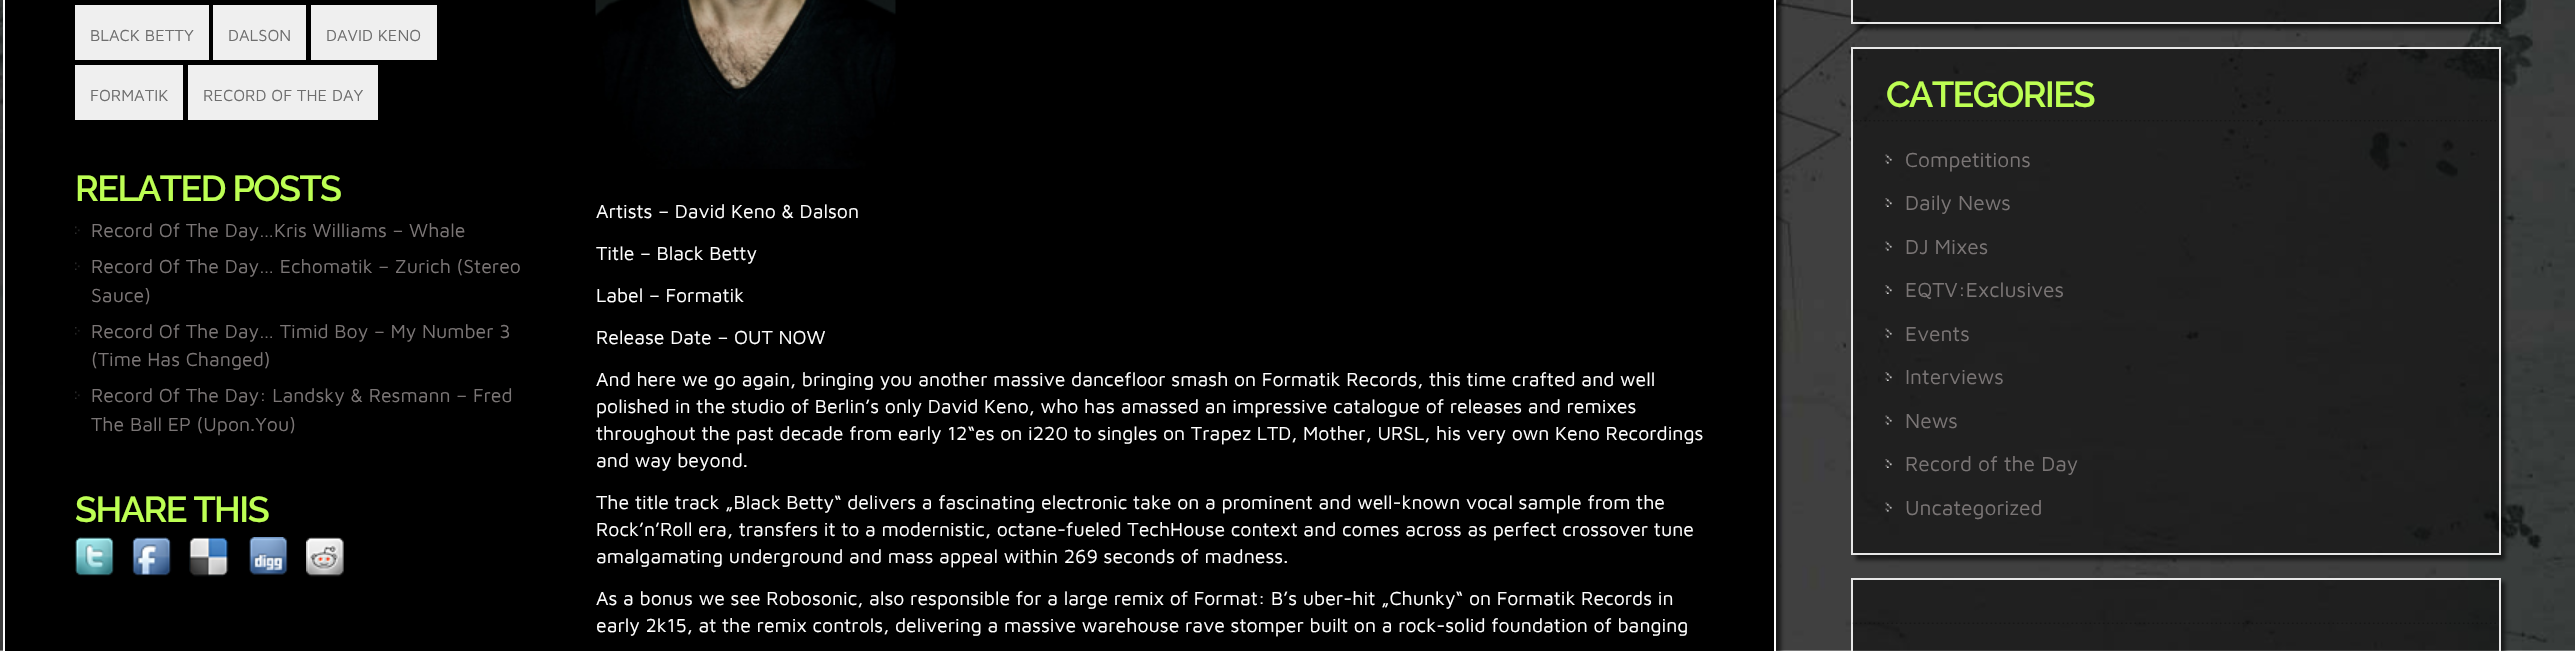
#include "include/core/SkBlurTypes.h"
#include "include/core/SkCanvas.h"
#include "include/core/SkData.h"
#include "include/core/SkFont.h"
#include "include/core/SkFontMgr.h"
#include "include/core/SkImage.h"
#include "include/core/SkMaskFilter.h"
#include "include/core/SkPaint.h"
#include "include/core/SkPathBuilder.h"
#include "include/core/SkTextBlob.h"
#include "include/effects/SkDashPathEffect.h"
#include "include/effects/SkGradientShader.h"
#include "include/utils/SkParsePath.h"

extern sk_sp<SkFontMgr> fontMgr;

void draw(SkCanvas* canvas) {
    SkPaint p;
    p.setAntiAlias(true);
    auto font = [&](const char* family, int weight, float size, bool italic = false) {
        SkFontStyle style(weight, SkFontStyle::kNormal_Width,
            italic ? SkFontStyle::kItalic_Slant : SkFontStyle::kUpright_Slant);
        SkFont result(fontMgr->matchFamilyStyle(family, style), size);
        result.setSubpixel(true);
        return result;
    };
    auto drawTracked = [&](const char* s, float x, float y, const SkFont& font, const SkPaint& ink, float letter, float word) {
        std::vector<SkGlyphID> glyphs(font.countText(s, strlen(s), SkTextEncoding::kUTF8));
        std::vector<float> xs(glyphs.size());
        font.textToGlyphs(s, strlen(s), SkTextEncoding::kUTF8, glyphs);
        font.getXPos(glyphs, xs, x);
        float extra = 0;
        for (size_t i = 0; i < glyphs.size(); i++) {
            xs[i] += extra;
            extra += letter + word * (glyphs[i] == font.unicharToGlyph(' '));
        }
        canvas->drawTextBlob(SkTextBlob::MakeFromPosHGlyphs(glyphs, xs, y, font), 0, 0, ink);
    };
    auto drawPhoto = [&](const char* path, float l, float t, float r, float b) {
        auto image = SkImages::DeferredFromEncodedData(SkData::MakeFromFileName(path));
        canvas->drawImageRect(image, SkRect::MakeLTRB(l, t, r, b), SkSamplingOptions());
    };
    canvas->clear(0xFFFFFFFF);
    drawPhoto("media/1.png", 0, 0, 2575, 651);
    p.setColor(0x99000000);
    p.setMaskFilter(SkMaskFilter::MakeBlur(kNormal_SkBlurStyle, 2));
    canvas->drawRect(SkRect::MakeLTRB(8, -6, 1781, 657), p);
    p.setMaskFilter(nullptr);
    p.setColor(0xFF000000);
    canvas->drawRect(SkRect::MakeLTRB(4, -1, 1775, 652), p);
    p.setStyle(SkPaint::kStroke_Style);
    p.setStrokeWidth(2);
    p.setColor(0xFFFFFFFF);
    canvas->drawRect(SkRect::MakeLTRB(4, -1, 1775, 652), p);
    p.setStyle(SkPaint::kFill_Style);
    p.setColor(0xFFEFEFEF);
    canvas->drawRect(SkRect::MakeLTRB(75, 5, 209, 60), p);
    auto font1 = font("Maven Pro", 400, 16.5f);
    p.setColor(0xFF6E6E6E);
    canvas->drawString("BLACK BETTY", 90, 41, font1, p);
    p.setColor(0xFFEFEFEF);
    canvas->drawRect(SkRect::MakeLTRB(213, 5, 306, 60), p);
    p.setColor(0xFF6E6E6E);
    canvas->drawString("DALSON", 228, 41, font1, p);
    p.setColor(0xFFEFEFEF);
    canvas->drawRect(SkRect::MakeLTRB(311, 5, 437, 60), p);
    p.setColor(0xFF6E6E6E);
    canvas->drawString("DAVID KENO", 326, 41, font1, p);
    p.setColor(0xFFEFEFEF);
    canvas->drawRect(SkRect::MakeLTRB(75, 65, 183, 120), p);
    p.setColor(0xFF6E6E6E);
    canvas->drawString("FORMATIK", 90, 101, font1, p);
    p.setColor(0xFFEFEFEF);
    canvas->drawRect(SkRect::MakeLTRB(188, 65, 378, 120), p);
    p.setColor(0xFF6E6E6E);
    canvas->drawString("RECORD OF THE DAY", 203, 101, font1, p);
    auto font2 = font("Raleway", 600, 36);
    p.setColor(0xFFBDFF53);
    drawTracked("RELATED POSTS", 75, 201, font2, p, -1.5f, 0);
    drawPhoto("media/2.png", 75, 226, 80, 234);
    auto font3 = font("Maven Pro", 400, 19.5f);
    p.setColor(0xFF7A7575);
    canvas->drawString("Record Of The Day…Kris Williams – Whale", 91, 237, font3, p);
    drawPhoto("media/2.png", 75, 262, 80, 270);
    canvas->drawString("Record Of The Day… Echomatik – Zurich (Stereo", 91, 273, font3, p);
    canvas->drawString("Sauce)", 91, 302, font3, p);
    drawPhoto("media/3.png", 75, 327, 80, 335);
    canvas->drawString("Record Of The Day… Timid Boy – My Number 3", 91, 338, font3, p);
    canvas->drawString("(Time Has Changed)", 91, 366, font3, p);
    drawPhoto("media/2.png", 75, 391, 80, 399);
    canvas->drawString("Record Of The Day: Landsky & Resmann – Fred", 91, 402, font3, p);
    canvas->drawString("The Ball EP (Upon.You)", 91, 431, font3, p);
    p.setColor(0xFFBDFF53);
    drawTracked("SHARE THIS", 75, 522, font2, p, -1.5f, 0);
    drawPhoto("media/4.png", 75, 537, 114, 576);
    drawPhoto("media/5.png", 132, 537, 172, 576);
    drawPhoto("media/6.png", 189, 537, 229, 577);
    drawPhoto("media/7.png", 249, 537, 288, 575);
    drawPhoto("media/8.png", 306, 537, 344, 577);
    drawPhoto("media/9.png", 595, 0, 896, 169);
    p.setColor(0xFFFFFFFF);
    {
        const struct { const char* s; float x, y; } items[] = {
            {"Artists – David Keno & Dalson", 596, 218},
            {"Title – Black Betty", 596, 260},
            {"Label – Formatik", 596, 302},
            {"Release Date – OUT NOW", 596, 344},
            {"And here we go again, bringing you another massive dancefloor smash on Formatik Records, this time crafted and well", 596, 386},
            {"polished in the studio of Berlin’s only David Keno, who has amassed an impressive catalogue of releases and remixes", 596, 413},
            {"throughout the past decade from early 12“es on i220 to singles on Trapez LTD, Mother, URSL, his very own Keno Recordings", 596, 440},
            {"and way beyond.", 596, 467},
            {"The title track „Black Betty“ delivers a fascinating electronic take on a prominent and well-known vocal sample from the", 596, 509},
            {"Rock’n’Roll era, transfers it to a modernistic, octane-fueled TechHouse context and comes across as perfect crossover tune", 596, 536},
            {"amalgamating underground and mass appeal within 269 seconds of madness.", 596, 563},
            {"As a bonus we see Robosonic, also responsible for a large remix of Format: B’s uber-hit „Chunky“ on Formatik Records in", 596, 605},
            {"early 2k15, at the remix controls, delivering a massive warehouse rave stomper built on a rock-solid foundation of banging", 596, 632},
        };
        for (auto [s, x, y] : items) {
            canvas->drawString(s, x, y, font3, p);
        }
    }
    canvas->save();
    canvas->clipPath(SkPathBuilder(SkPathFillType::kEvenOdd).moveTo(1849, 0).lineTo(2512, 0).lineTo(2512, 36).lineTo(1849, 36).close().moveTo(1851, -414).lineTo(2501, -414).lineTo(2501, 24).lineTo(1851, 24).close().detach(), true);
    p.setColor(0x99000000);
    p.setMaskFilter(SkMaskFilter::MakeBlur(kNormal_SkBlurStyle, 2));
    canvas->drawRect(SkRect::MakeLTRB(1856, -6, 2505, 29), p);
    p.setMaskFilter(nullptr);
    canvas->restore();
    p.setColor(0x80000000);
    canvas->drawRect(SkRect::MakeLTRB(1852, -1, 2500, 23), p);
    p.setStyle(SkPaint::kStroke_Style);
    p.setColor(0xFFE7E7E7);
    canvas->drawRect(SkRect::MakeLTRB(1852, -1, 2500, 23), p);
    canvas->save();
    canvas->clipPath(SkPathBuilder(SkPathFillType::kEvenOdd).moveTo(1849, 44).lineTo(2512, 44).lineTo(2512, 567).lineTo(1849, 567).close().moveTo(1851, 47).lineTo(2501, 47).lineTo(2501, 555).lineTo(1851, 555).close().detach(), true);
    p.setStyle(SkPaint::kFill_Style);
    p.setColor(0x99000000);
    p.setMaskFilter(SkMaskFilter::MakeBlur(kNormal_SkBlurStyle, 2));
    canvas->drawRect(SkRect::MakeLTRB(1856, 51, 2505, 560), p);
    p.setMaskFilter(nullptr);
    canvas->restore();
    p.setColor(0x80000000);
    canvas->drawRect(SkRect::MakeLTRB(1852, 48, 2500, 554), p);
    p.setStyle(SkPaint::kStroke_Style);
    p.setColor(0xFFE7E7E7);
    canvas->drawRect(SkRect::MakeLTRB(1852, 48, 2500, 554), p);
    drawPhoto("media/10.png", 1852, 120, 2496, 122);
    p.setStyle(SkPaint::kFill_Style);
    p.setColor(0xFFBDFF53);
    drawTracked("CATEGORIES", 1886, 107, font2, p, -1.5f, 0);
    drawPhoto("media/11.png", 1885, 154, 1892, 164);
    auto font4 = font("Maven Pro", 400, 21);
    p.setColor(0xFF7A7575);
    canvas->drawString("Competitions", 1905, 167, font4, p);
    drawPhoto("media/12.png", 1885, 198, 1892, 207);
    canvas->drawString("Daily News", 1905, 210, font4, p);
    drawPhoto("media/11.png", 1885, 241, 1892, 251);
    canvas->drawString("DJ Mixes", 1905, 254, font4, p);
    drawPhoto("media/12.png", 1885, 285, 1892, 294);
    canvas->drawString("EQTV:Exclusives", 1905, 297, font4, p);
    drawPhoto("media/13.png", 1885, 328, 1892, 338);
    canvas->drawString("Events", 1905, 341, font4, p);
    drawPhoto("media/14.png", 1885, 372, 1892, 381);
    canvas->drawString("Interviews", 1905, 384, font4, p);
    drawPhoto("media/11.png", 1885, 415, 1892, 425);
    canvas->drawString("News", 1905, 428, font4, p);
    drawPhoto("media/12.png", 1885, 459, 1892, 468);
    canvas->drawString("Record of the Day", 1905, 471, font4, p);
    drawPhoto("media/15.png", 1885, 502, 1892, 512);
    canvas->drawString("Uncategorized", 1905, 515, font4, p);
    canvas->save();
    canvas->clipRect(SkRect::MakeLTRB(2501, 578, 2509, 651));
    p.setColor(0x99000000);
    p.setMaskFilter(SkMaskFilter::MakeBlur(kNormal_SkBlurStyle, 2));
    canvas->drawRect(SkRect::MakeLTRB(1856, 582, 2505, 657), p);
    p.setMaskFilter(nullptr);
    canvas->restore();
    p.setColor(0x80000000);
    canvas->drawRect(SkRect::MakeLTRB(1852, 579, 2500, 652), p);
    p.setStyle(SkPaint::kStroke_Style);
    p.setColor(0xFFE7E7E7);
    canvas->drawRect(SkRect::MakeLTRB(1852, 579, 2500, 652), p);
    drawPhoto("media/16.png", 1852, 622, 2496, 624);
}
